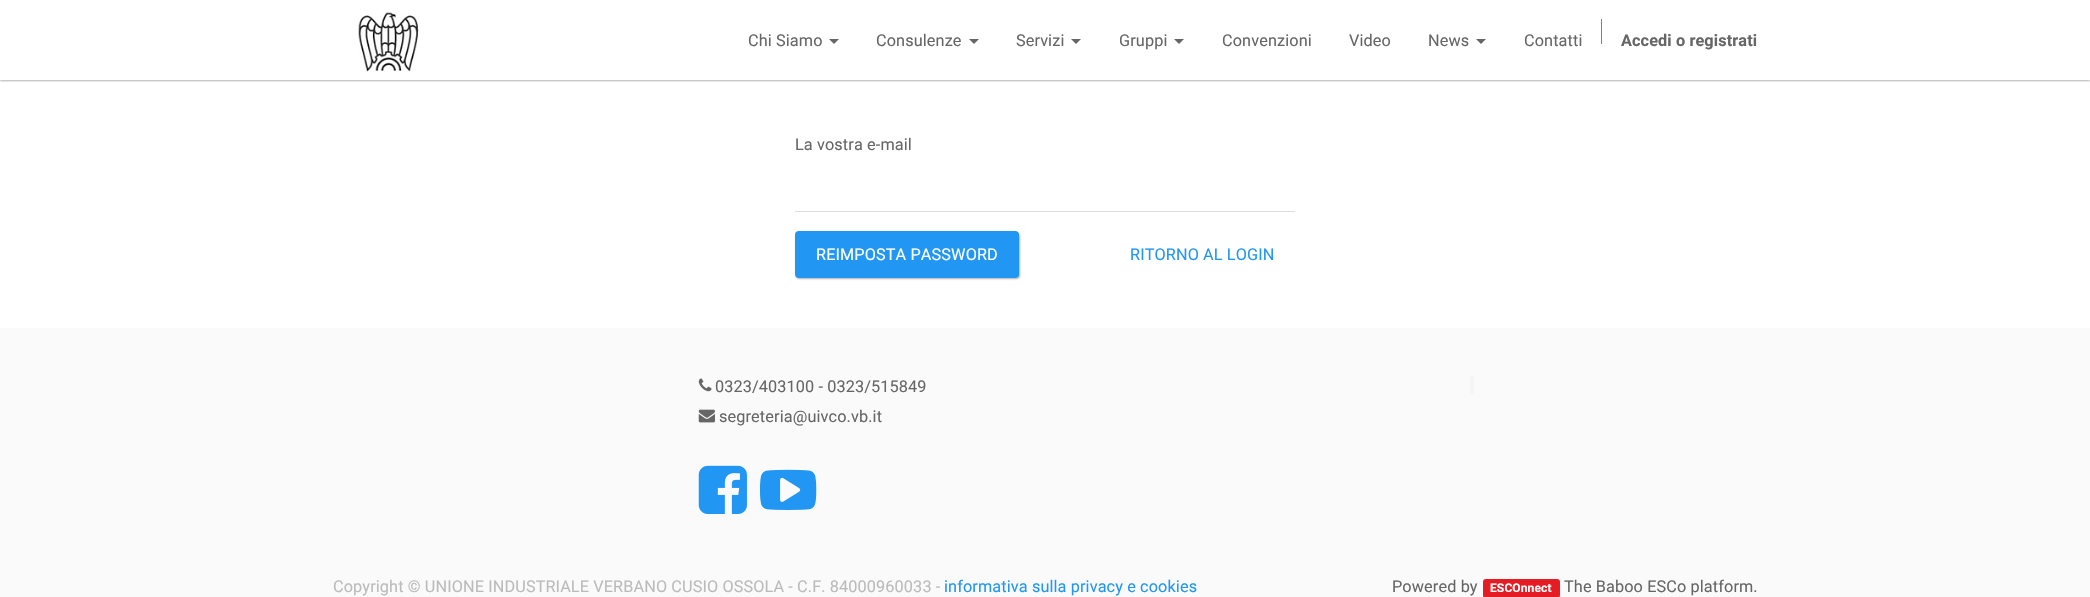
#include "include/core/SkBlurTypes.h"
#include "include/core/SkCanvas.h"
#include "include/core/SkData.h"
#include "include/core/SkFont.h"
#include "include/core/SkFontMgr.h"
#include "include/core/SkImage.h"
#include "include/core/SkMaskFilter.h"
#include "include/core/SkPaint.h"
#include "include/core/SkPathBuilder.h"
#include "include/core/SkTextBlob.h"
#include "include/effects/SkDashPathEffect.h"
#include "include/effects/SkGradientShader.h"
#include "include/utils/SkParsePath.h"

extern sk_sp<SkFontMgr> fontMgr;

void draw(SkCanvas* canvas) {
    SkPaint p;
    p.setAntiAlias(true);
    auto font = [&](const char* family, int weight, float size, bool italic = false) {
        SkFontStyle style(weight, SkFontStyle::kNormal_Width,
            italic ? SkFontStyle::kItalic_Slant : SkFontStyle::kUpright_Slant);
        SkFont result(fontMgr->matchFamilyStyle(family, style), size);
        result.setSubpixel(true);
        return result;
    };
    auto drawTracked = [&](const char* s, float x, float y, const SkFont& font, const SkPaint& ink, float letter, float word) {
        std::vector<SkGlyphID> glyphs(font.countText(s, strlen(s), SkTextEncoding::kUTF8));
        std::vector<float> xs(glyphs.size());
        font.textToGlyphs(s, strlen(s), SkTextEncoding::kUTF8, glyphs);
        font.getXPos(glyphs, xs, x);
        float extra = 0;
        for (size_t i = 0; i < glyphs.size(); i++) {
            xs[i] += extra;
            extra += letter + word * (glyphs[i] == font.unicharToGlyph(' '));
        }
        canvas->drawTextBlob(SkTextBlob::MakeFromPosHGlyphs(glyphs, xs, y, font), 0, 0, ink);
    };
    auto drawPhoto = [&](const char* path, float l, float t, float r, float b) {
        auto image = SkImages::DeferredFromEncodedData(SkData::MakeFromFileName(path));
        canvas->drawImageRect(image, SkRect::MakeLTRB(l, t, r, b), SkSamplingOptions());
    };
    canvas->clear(0xFFFFFFFF);
    canvas->save();
    canvas->clipRect(SkRect::MakeLTRB(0, 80, 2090, 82));
    p.setColor(0x4D000000);
    p.setMaskFilter(SkMaskFilter::MakeBlur(kNormal_SkBlurStyle, 1));
    canvas->drawRect(SkRect::MakeLTRB(0, 1, 2090, 81), p);
    p.setMaskFilter(nullptr);
    canvas->restore();
    drawPhoto("media/1.png", 358, 12, 419, 72);
    auto font1 = font("Roboto", 400, 16.25f);
    p.setColor(0xFF666666);
    drawTracked("Chi Siamo", 748, 46, font1, p, 0.12f, 0);
    canvas->drawPath(SkPathBuilder().moveTo(829, 39).lineTo(839, 39).lineTo(834, 44).close().detach(), p);
    drawTracked("Consulenze", 876, 46, font1, p, 0.12f, 0);
    canvas->drawPath(SkPathBuilder().moveTo(969, 39).lineTo(979, 39).lineTo(974, 44).close().detach(), p);
    drawTracked("Servizi", 1016, 46, font1, p, 0.12f, 0);
    canvas->drawPath(SkPathBuilder().moveTo(1071, 39).lineTo(1081, 39).lineTo(1076, 44).close().detach(), p);
    drawTracked("Gruppi", 1119, 46, font1, p, 0.12f, 0);
    canvas->drawPath(SkPathBuilder().moveTo(1174, 39).lineTo(1184, 39).lineTo(1179, 44).close().detach(), p);
    {
        const struct { const char* s; float x, y; } items[] = {
            {"Convenzioni", 1222, 46},
            {"Video", 1349, 46},
            {"News", 1428, 46},
        };
        for (auto [s, x, y] : items) {
            drawTracked(s, x, y, font1, p, 0.12f, 0);
        }
    }
    canvas->drawPath(SkPathBuilder().moveTo(1476, 39).lineTo(1486, 39).lineTo(1481, 44).close().detach(), p);
    drawTracked("Contatti", 1524, 46, font1, p, 0.12f, 0);
    p.setColor(0xFF808080);
    canvas->drawRect(SkRect::MakeLTRB(1601, 19, 1602, 44), p);
    auto font2 = font("Roboto", 700, 16.25f);
    p.setColor(0xFF666666);
    drawTracked("Accedi o registrati", 1621, 46, font2, p, 0.12f, 0);
    drawTracked("La vostra e-mail", 795, 150, font1, p, 0.12f, 0);
    p.setColor(0xFFDDDDDD);
    canvas->drawRect(SkRect::MakeLTRB(795, 211, 1295, 212), p);
    p.setColor(0x4D000000);
    p.setMaskFilter(SkMaskFilter::MakeBlur(kNormal_SkBlurStyle, 1));
    canvas->drawRoundRect(SkRect::MakeLTRB(796, 233, 1020, 279), 4, 4, p);
    p.setMaskFilter(nullptr);
    p.setColor(0xFF2196F3);
    canvas->drawRoundRect(SkRect::MakeLTRB(795, 231, 1019, 278), 4, 4, p);
    p.setColor(0xFFFFFFFF);
    drawTracked("REIMPOSTA PASSWORD", 816, 260, font1, p, 0.12f, 0);
    p.setColor(0xFF2196F3);
    drawTracked("RITORNO AL LOGIN", 1130, 260, font1, p, 0.12f, 0);
    p.setColor(0xFFFAFAFA);
    canvas->drawRect(SkRect::MakeLTRB(0, 328, 2090, 597), p);
    drawPhoto("media/2.png", 698, 378, 712, 392);
    p.setColor(0xFF666666);
    drawTracked("0323/403100 - 0323/515849", 715, 392, font1, p, 0.12f, 0);
    drawPhoto("media/3.png", 698, 409, 715, 423);
    drawTracked("segreteria@uivco.vb.it", 719, 422, font1, p, 0.12f, 0);
    drawPhoto("media/4.png", 698, 465, 747, 514);
    drawPhoto("media/5.png", 760, 469, 817, 510);
    p.setColor(0xFFF5F5F5);
    canvas->drawRect(SkRect::MakeLTRB(1470, 376, 1474, 395), p);
    p.setColor(0xFFBBBBBB);
    drawTracked("Copyright © UNIONE INDUSTRIALE VERBANO CUSIO OSSOLA - C.F. 84000960033 -", 333, 592, font1, p, 0.12f, 0);
    p.setColor(0xFF2196F3);
    drawTracked("informativa sulla privacy e cookies", 944, 592, font1, p, 0.12f, 0);
    p.setColor(0xFF666666);
    drawTracked("Powered by", 1392, 592, font1, p, 0.12f, 0);
    p.setColor(0xFFE51C23);
    canvas->drawRoundRect(SkRect::MakeLTRB(1483, 579, 1560, 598), 3, 3, p);
    auto font3 = font("Roboto", 700, 12);
    p.setColor(0xFFFFFFFF);
    drawTracked("ESCOnnect", 1490, 592, font3, p, 0.12f, 0);
    p.setColor(0xFF666666);
    drawTracked("The Baboo ESCo platform.", 1564, 592, font1, p, 0.12f, 0);
}
